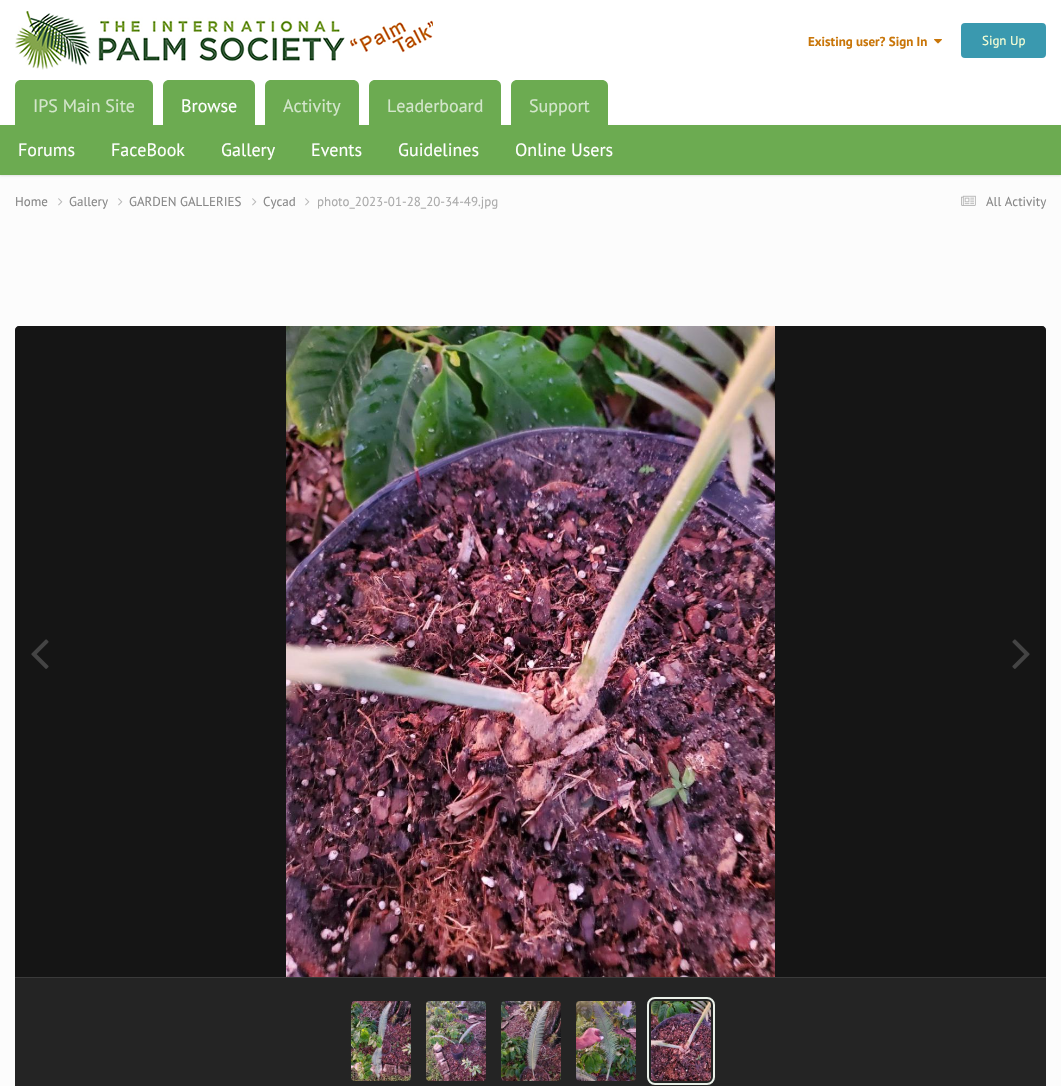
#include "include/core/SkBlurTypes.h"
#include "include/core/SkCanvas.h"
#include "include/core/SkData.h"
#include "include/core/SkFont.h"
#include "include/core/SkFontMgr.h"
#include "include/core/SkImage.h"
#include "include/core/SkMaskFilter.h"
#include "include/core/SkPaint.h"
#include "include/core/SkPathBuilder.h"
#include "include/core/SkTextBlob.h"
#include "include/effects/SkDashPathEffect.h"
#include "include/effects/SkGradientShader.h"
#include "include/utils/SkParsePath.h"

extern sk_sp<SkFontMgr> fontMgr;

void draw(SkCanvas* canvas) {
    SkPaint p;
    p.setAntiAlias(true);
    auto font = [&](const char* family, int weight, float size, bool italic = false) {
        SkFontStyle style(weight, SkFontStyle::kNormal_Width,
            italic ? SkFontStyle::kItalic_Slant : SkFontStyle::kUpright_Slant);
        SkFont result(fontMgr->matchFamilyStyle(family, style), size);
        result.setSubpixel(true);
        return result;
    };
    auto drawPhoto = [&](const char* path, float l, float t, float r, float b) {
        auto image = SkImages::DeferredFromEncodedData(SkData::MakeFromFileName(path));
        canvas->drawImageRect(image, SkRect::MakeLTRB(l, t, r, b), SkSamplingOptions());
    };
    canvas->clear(0xFFFCFCFC);
    p.setColor(0xFFFFFFFF);
    canvas->drawRect(SkRect::MakeLTRB(0, 0, 1061, 125), p);
    drawPhoto("media/1.png", 15, 11, 433, 70);
    auto font1 = font("PT Sans", 700, 13);
    p.setColor(0xFFC97609);
    canvas->drawString("Existing user? Sign In", 808, 46, font1, p);
    drawPhoto("media/2.png", 934, 39, 942, 44);
    p.setColor(0xFF3A99AF);
    canvas->drawRoundRect(SkRect::MakeLTRB(961, 23, 1046, 58), 4, 4, p);
    auto font2 = font("PT Sans", 400, 13);
    p.setColor(0xFFF6FFD5);
    canvas->drawString("Sign Up", 982, 45, font2, p);
    p.setColor(0x1A000000);
    p.setMaskFilter(SkMaskFilter::MakeBlur(kNormal_SkBlurStyle, 1));
    canvas->drawRect(SkRect::MakeLTRB(0, 126, 1061, 176), p);
    p.setMaskFilter(nullptr);
    p.setColor(0xFF6CAB51);
    canvas->drawRect(SkRect::MakeLTRB(0, 125, 1061, 175), p);
    canvas->drawPath(SkPathBuilder().moveTo(169, 80).lineTo(249, 80).cubicTo(252.5f, 80, 255, 82.5f, 255, 86).lineTo(255, 132).lineTo(163, 132).lineTo(163, 86).cubicTo(163, 82.5f, 165.5f, 80, 169, 80).close().detach(), p);
    auto font3 = font("PT Sans", 400, 18);
    p.setColor(0xFFFFFFFF);
    {
        const struct { const char* s; float x, y; } items[] = {
            {"Browse", 181, 112},
            {"Forums", 18, 156},
            {"FaceBook", 111, 156},
            {"Gallery", 221, 156},
            {"Events", 311, 156},
            {"Guidelines", 398, 156},
            {"Online Users", 515, 156},
        };
        for (auto [s, x, y] : items) {
            canvas->drawString(s, x, y, font3, p);
        }
    }
    p.setColor(0xFF6CAB51);
    canvas->drawPath(SkPathBuilder().moveTo(21, 80).lineTo(147, 80).cubicTo(150.5f, 80, 153, 82.5f, 153, 86).lineTo(153, 132).lineTo(15, 132).lineTo(15, 86).cubicTo(15, 82.5f, 17.5f, 80, 21, 80).close().detach(), p);
    p.setColor(0xFFD3E6CB);
    canvas->drawString("IPS Main Site", 33, 112, font3, p);
    p.setColor(0xFF6CAB51);
    canvas->drawPath(SkPathBuilder().moveTo(271, 80).lineTo(353, 80).cubicTo(356.5f, 80, 359, 82.5f, 359, 86).lineTo(359, 132).lineTo(265, 132).lineTo(265, 86).cubicTo(265, 82.5f, 267.5f, 80, 271, 80).close().detach(), p);
    p.setColor(0xFFD3E6CB);
    canvas->drawString("Activity", 283, 112, font3, p);
    p.setColor(0xFF6CAB51);
    canvas->drawPath(SkPathBuilder().moveTo(375, 80).lineTo(495, 80).cubicTo(498.5f, 80, 501, 82.5f, 501, 86).lineTo(501, 132).lineTo(369, 132).lineTo(369, 86).cubicTo(369, 82.5f, 371.5f, 80, 375, 80).close().detach(), p);
    p.setColor(0xFFD3E6CB);
    canvas->drawString("Leaderboard", 387, 112, font3, p);
    p.setColor(0xFF6CAB51);
    canvas->drawPath(SkPathBuilder().moveTo(517, 80).lineTo(602, 80).cubicTo(605.5f, 80, 608, 82.5f, 608, 86).lineTo(608, 132).lineTo(511, 132).lineTo(511, 86).cubicTo(511, 82.5f, 513.5f, 80, 517, 80).close().detach(), p);
    p.setColor(0xFFD3E6CB);
    canvas->drawString("Support", 529, 112, font3, p);
    p.setColor(0xFF888888);
    canvas->drawString("Home", 15, 206, font2, p);
    drawPhoto("media/3.png", 58, 198, 63, 206);
    canvas->drawString("Gallery", 69, 206, font2, p);
    drawPhoto("media/3.png", 118, 198, 123, 206);
    canvas->drawString("GARDEN GALLERIES", 129, 206, font2, p);
    drawPhoto("media/3.png", 252, 198, 257, 206);
    canvas->drawString("Cycad", 263, 206, font2, p);
    drawPhoto("media/3.png", 305, 198, 310, 206);
    p.setColor(0xFFABABAB);
    canvas->drawString("photo_2023-01-28_20-34-49.jpg", 317, 206, font2, p);
    drawPhoto("media/4.png", 961, 195, 976, 206);
    p.setColor(0xFF888888);
    canvas->drawString("All Activity", 986, 206, font2, p);
    p.setColor(0xFF333333);
    canvas->drawPath(SkPathBuilder().moveTo(19, 326).lineTo(1042, 326).cubicTo(1044, 326, 1046, 328, 1046, 330).lineTo(1046, 977).lineTo(15, 977).lineTo(15, 330).cubicTo(15, 328, 17, 326, 19, 326).close().detach(), p);
    p.setColor(0x99000000);
    canvas->drawPath(SkPathBuilder().moveTo(19, 326).lineTo(1042, 326).cubicTo(1044, 326, 1046, 328, 1046, 330).lineTo(1046, 977).lineTo(15, 977).lineTo(15, 330).cubicTo(15, 328, 17, 326, 19, 326).close().detach(), p);
    drawPhoto("media/5.png", 286, 326, 775, 977);
    drawPhoto("media/6.png", 31, 639, 49, 669);
    drawPhoto("media/7.png", 1012, 639, 1030, 669);
    p.setColor(0xFF242424);
    canvas->drawRect(SkRect::MakeLTRB(15, 978, 1046, 1086), p);
    p.setColor(0xFF3A3A3A);
    canvas->drawRect(SkRect::MakeLTRB(15, 977, 1046, 978), p);
    drawPhoto("media/8.png", 351, 1001, 411, 1081);
    drawPhoto("media/9.png", 426, 1001, 486, 1081);
    drawPhoto("media/10.png", 501, 1001, 561, 1081);
    drawPhoto("media/11.png", 576, 1001, 636, 1081);
    p.setStyle(SkPaint::kStroke_Style);
    p.setStrokeWidth(2);
    p.setColor(0xFFEAF0E8);
    canvas->drawRoundRect(SkRect::MakeLTRB(648, 998, 714, 1084), 7, 7, p);
    drawPhoto("media/12.png", 651, 1001, 711, 1081);
}
